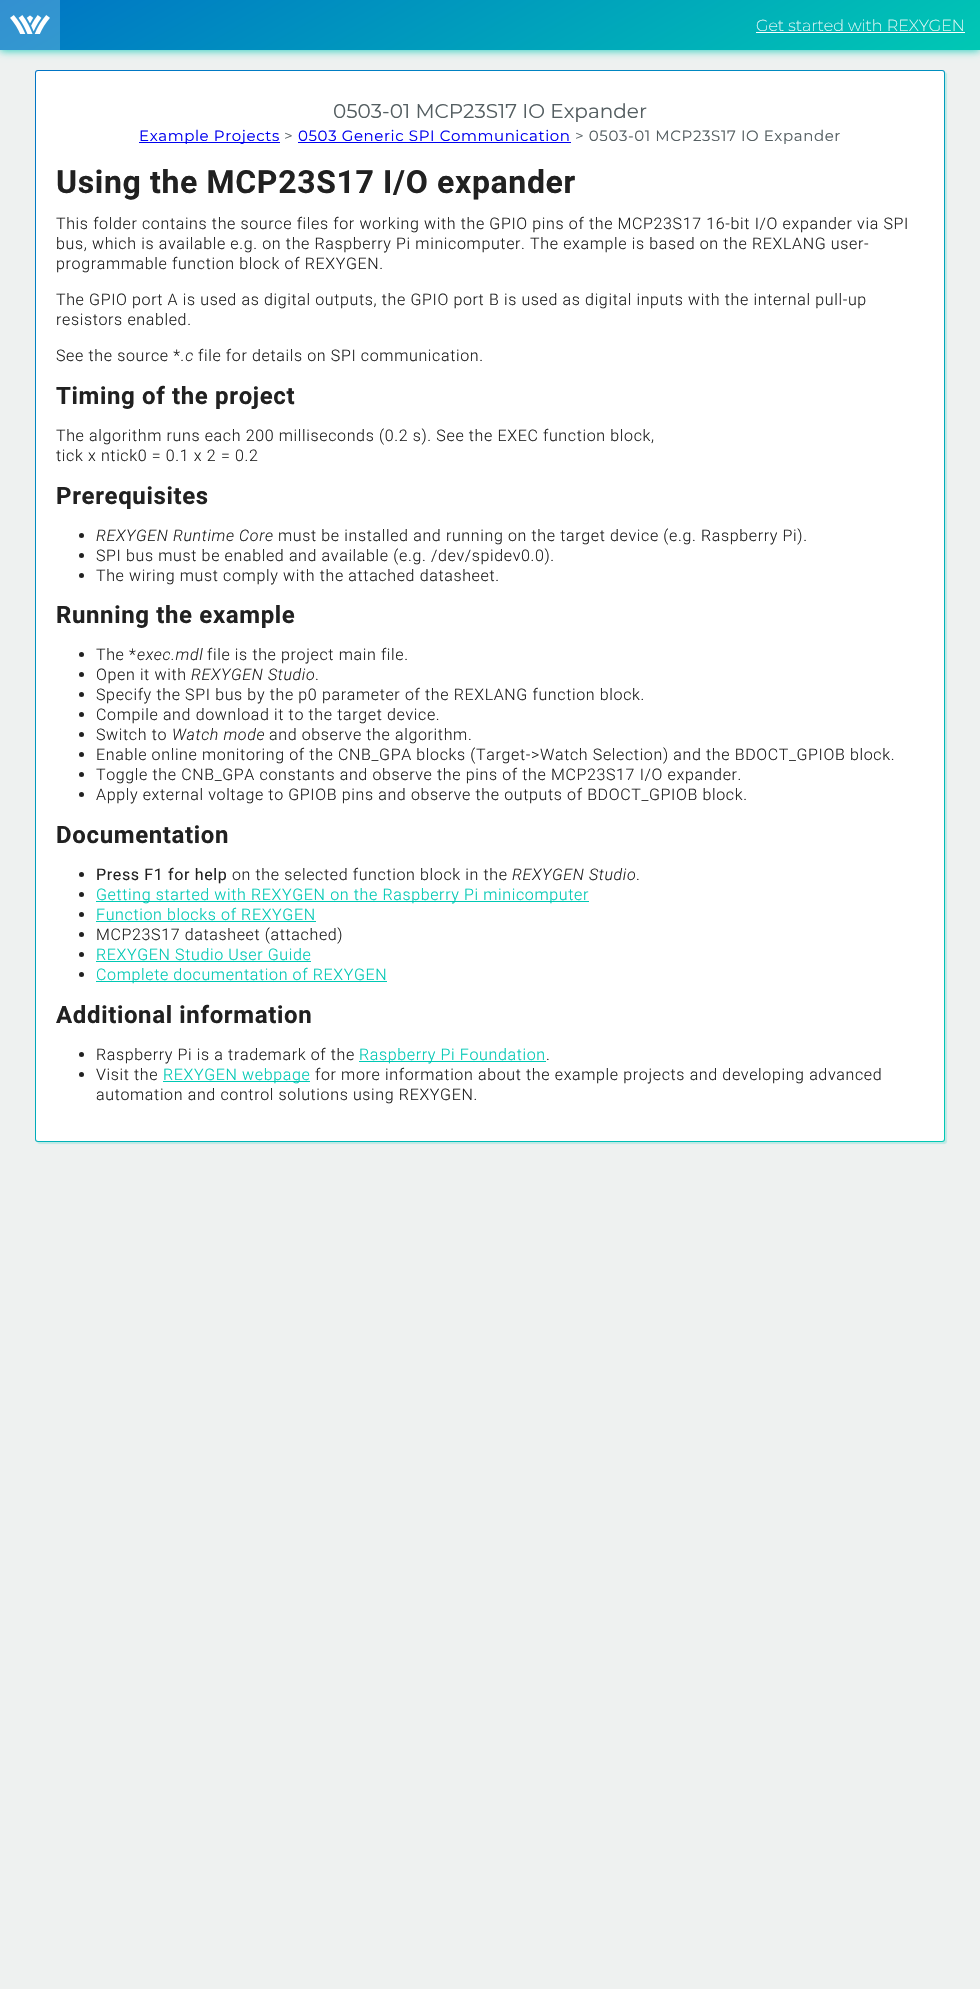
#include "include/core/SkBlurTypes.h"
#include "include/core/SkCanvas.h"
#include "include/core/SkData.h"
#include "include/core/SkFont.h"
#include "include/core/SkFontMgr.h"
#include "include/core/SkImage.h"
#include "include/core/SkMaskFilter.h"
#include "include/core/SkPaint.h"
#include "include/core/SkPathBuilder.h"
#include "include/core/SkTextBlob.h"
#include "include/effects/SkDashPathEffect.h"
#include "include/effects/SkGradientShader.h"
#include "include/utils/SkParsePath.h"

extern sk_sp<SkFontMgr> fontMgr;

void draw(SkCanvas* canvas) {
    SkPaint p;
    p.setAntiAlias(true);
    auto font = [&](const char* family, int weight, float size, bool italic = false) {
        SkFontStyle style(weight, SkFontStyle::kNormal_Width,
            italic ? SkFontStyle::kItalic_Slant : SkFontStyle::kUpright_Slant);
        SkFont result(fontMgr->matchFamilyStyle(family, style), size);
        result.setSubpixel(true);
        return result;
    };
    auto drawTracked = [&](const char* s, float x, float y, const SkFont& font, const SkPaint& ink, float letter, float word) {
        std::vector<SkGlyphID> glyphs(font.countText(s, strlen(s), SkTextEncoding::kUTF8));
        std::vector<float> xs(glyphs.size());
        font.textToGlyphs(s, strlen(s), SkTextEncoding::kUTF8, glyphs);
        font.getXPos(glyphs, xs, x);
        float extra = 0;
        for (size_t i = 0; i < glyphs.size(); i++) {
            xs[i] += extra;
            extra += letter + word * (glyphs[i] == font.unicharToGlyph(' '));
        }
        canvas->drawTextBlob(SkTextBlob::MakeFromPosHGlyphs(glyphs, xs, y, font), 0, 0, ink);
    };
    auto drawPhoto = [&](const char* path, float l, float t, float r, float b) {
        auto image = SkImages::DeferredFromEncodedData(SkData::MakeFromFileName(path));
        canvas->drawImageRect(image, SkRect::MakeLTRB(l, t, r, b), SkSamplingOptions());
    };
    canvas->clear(0xFFEEF1F0);
    p.setColor(0xCC00C8B4);
    p.setMaskFilter(SkMaskFilter::MakeBlur(kNormal_SkBlurStyle, 4));
    canvas->drawRect(SkRect::MakeLTRB(0, 1, 980, 51), p);
    p.setMaskFilter(nullptr);
    {
        const SkColor colors[] = {0xFF00C8B4, 0xFF0074C5};
        const float stops[] = {0, 1};
        const SkPoint ends[] = {{623, 256}, {357, -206}};
        p.setShader(SkGradientShader::MakeLinear(ends, colors, stops, 2, SkTileMode::kClamp));
        p.setAlpha(255);
    }
    canvas->drawRect(SkRect::MakeLTRB(60, 0, 980, 50), p);
    {
        const SkColor colors[] = {0xFF33D3C3, 0xFF3390D1};
        const float stops[] = {0, 1};
        const SkPoint ends[] = {{623, 256}, {357, -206}};
        p.setShader(SkGradientShader::MakeLinear(ends, colors, stops, 2, SkTileMode::kClamp));
        p.setAlpha(255);
    }
    canvas->drawRect(SkRect::MakeLTRB(0, 0, 60, 50), p);
    drawPhoto("media/1.png", 10, 15, 50, 34);
    auto font1 = font("Montserrat", 200, 16);
    p.setShader(nullptr);
    p.setColor(0xFFFFFFFF);
    canvas->drawString("Get started with REXYGEN", 756, 31, font1, p);
    canvas->drawRect(SkRect::MakeLTRB(756, 32, 965, 33), p);
    {
        const SkColor colors[] = {0xFF00C8B4, 0xFF0074C5};
        const float stops[] = {0, 1};
        const SkPoint ends[] = {{836, 1205}, {144, 7}};
        p.setShader(SkGradientShader::MakeLinear(ends, colors, stops, 2, SkTileMode::kClamp));
        p.setAlpha(255);
    }
    canvas->drawRoundRect(SkRect::MakeLTRB(35, 70, 945, 1142), 3, 3, p);
    p.setShader(nullptr);
    p.setColor(0x3300C8B4);
    p.setMaskFilter(SkMaskFilter::MakeBlur(kNormal_SkBlurStyle, 0.5f));
    canvas->drawRoundRect(SkRect::MakeLTRB(37, 72, 947, 1144), 3, 3, p);
    p.setMaskFilter(nullptr);
    p.setColor(0xFFFFFFFF);
    canvas->drawRoundRect(SkRect::MakeLTRB(36, 71, 944, 1141), 2, 2, p);
    auto font2 = font("Montserrat", 400, 20);
    p.setColor(0xFF545E61);
    canvas->drawString("0503-01 MCP23S17 IO Expander", 333, 118, font2, p);
    p.setColor(0xFF0000EE);
    canvas->drawRect(SkRect::MakeLTRB(139, 142, 280, 143), p);
    auto font3 = font("Montserrat", 400, 15);
    drawTracked("Example Projects", 139, 141, font3, p, 0.6f, 0);
    p.setColor(0xFF545E61);
    drawTracked(">", 284, 141, font3, p, 0.6f, 0);
    p.setColor(0xFF0000EE);
    drawTracked("0503 Generic SPI Communication", 298, 141, font3, p, 0.6f, 0);
    canvas->drawRect(SkRect::MakeLTRB(298, 142, 571, 143), p);
    p.setColor(0xFF545E61);
    drawTracked("> 0503-01 MCP23S17 IO Expander", 575, 141, font3, p, 0.6f, 0);
    auto font4 = font("Roboto", 700, 32);
    p.setColor(0xFF212121);
    drawTracked("Using the MCP23S17 I/O expander", 56, 193, font4, p, 0.64f, 0);
    auto font5 = font("Roboto", 300, 16);
    {
        const struct { const char* s; float x, y; } items[] = {
            {"This folder contains the source files for working with the GPIO pins of the MCP23S17 16-bit I/O expander via SPI", 56, 229},
            {"bus, which is available e.g. on the Raspberry Pi minicomputer. The example is based on the REXLANG user-", 56, 249},
            {"programmable function block of REXYGEN.", 56, 269},
            {"The GPIO port A is used as digital outputs, the GPIO port B is used as digital inputs with the internal pull-up", 56, 305},
            {"resistors enabled.", 56, 325},
            {"See the source *", 56, 361},
        };
        for (auto [s, x, y] : items) {
            drawTracked(s, x, y, font5, p, 0.64f, 0);
        }
    }
    auto font6 = font("Roboto", 300, 16, true);
    drawTracked(".c", 181, 361, font6, p, 0.64f, 0);
    drawTracked("file for details on SPI communication.", 198, 361, font5, p, 0.64f, 0);
    auto font7 = font("Roboto", 700, 24);
    drawTracked("Timing of the project", 56, 404, font7, p, 0.64f, 0);
    drawTracked("The algorithm runs each 200 milliseconds (0.2 s). See the EXEC function block,", 56, 441, font5, p, 0.64f, 0);
    drawTracked("tick x ntick0 = 0.1 x 2 = 0.2", 56, 461, font5, p, 0.64f, 0);
    drawTracked("Prerequisites", 56, 504, font7, p, 0.64f, 0);
    canvas->drawCircle(81.5f, 535.5f, 2.5f, p);
    drawTracked("REXYGEN Runtime Core", 96, 541, font6, p, 0.64f, 0);
    drawTracked("must be installed and running on the target device (e.g. Raspberry Pi).", 278, 541, font5, p, 0.64f, 0);
    canvas->drawCircle(81.5f, 555.5f, 2.5f, p);
    drawTracked("SPI bus must be enabled and available (e.g. /dev/spidev0.0).", 96, 561, font5, p, 0.64f, 0);
    canvas->drawCircle(81.5f, 575.5f, 2.5f, p);
    drawTracked("The wiring must comply with the attached datasheet.", 96, 581, font5, p, 0.64f, 0);
    drawTracked("Running the example", 56, 623, font7, p, 0.64f, 0);
    canvas->drawCircle(81.5f, 654.5f, 2.5f, p);
    drawTracked("The *", 96, 660, font5, p, 0.64f, 0);
    drawTracked("exec.mdl", 137, 660, font6, p, 0.64f, 0);
    drawTracked("file is the project main file.", 207, 660, font5, p, 0.64f, 0);
    canvas->drawCircle(81.5f, 674.5f, 2.5f, p);
    drawTracked("Open it with", 96, 680, font5, p, 0.64f, 0);
    drawTracked("REXYGEN Studio", 191, 680, font6, p, 0.64f, 0);
    drawTracked(".", 315, 680, font5, p, 0.64f, 0);
    canvas->drawCircle(81.5f, 694.5f, 2.5f, p);
    drawTracked("Specify the SPI bus by the p0 parameter of the REXLANG function block.", 96, 700, font5, p, 0.64f, 0);
    canvas->drawCircle(81.5f, 714.5f, 2.5f, p);
    drawTracked("Compile and download it to the target device.", 96, 720, font5, p, 0.64f, 0);
    canvas->drawCircle(81.5f, 734.5f, 2.5f, p);
    drawTracked("Switch to", 96, 740, font5, p, 0.64f, 0);
    drawTracked("Watch mode", 172, 740, font6, p, 0.64f, 0);
    drawTracked("and observe the algorithm.", 269, 740, font5, p, 0.64f, 0);
    canvas->drawCircle(81.5f, 754.5f, 2.5f, p);
    drawTracked("Enable online monitoring of the CNB_GPA blocks (Target->Watch Selection) and the BDOCT_GPIOB block.", 96, 760, font5, p, 0.64f, 0);
    canvas->drawCircle(81.5f, 774.5f, 2.5f, p);
    drawTracked("Toggle the CNB_GPA constants and observe the pins of the MCP23S17 I/O expander.", 96, 780, font5, p, 0.64f, 0);
    canvas->drawCircle(81.5f, 794.5f, 2.5f, p);
    drawTracked("Apply external voltage to GPIOB pins and observe the outputs of BDOCT_GPIOB block.", 96, 800, font5, p, 0.64f, 0);
    drawTracked("Documentation", 56, 843, font7, p, 0.64f, 0);
    canvas->drawCircle(81.5f, 874.5f, 2.5f, p);
    auto font8 = font("Roboto", 400, 16);
    drawTracked("Press F1 for help", 96, 880, font8, p, 0.64f, 0);
    drawTracked("on the selected function block in the", 232, 880, font5, p, 0.64f, 0);
    drawTracked("REXYGEN Studio", 512, 880, font6, p, 0.64f, 0);
    drawTracked(".", 636, 880, font5, p, 0.64f, 0);
    canvas->drawCircle(81.5f, 894.5f, 2.5f, p);
    p.setColor(0xFF00C8B4);
    canvas->drawRect(SkRect::MakeLTRB(96, 901, 589, 902), p);
    drawTracked("Getting started with REXYGEN on the Raspberry Pi minicomputer", 96, 900, font5, p, 0.64f, 0);
    p.setColor(0xFF212121);
    canvas->drawCircle(81.5f, 914.5f, 2.5f, p);
    p.setColor(0xFF00C8B4);
    drawTracked("Function blocks of REXYGEN", 96, 920, font5, p, 0.64f, 0);
    canvas->drawRect(SkRect::MakeLTRB(96, 921, 316, 922), p);
    p.setColor(0xFF212121);
    canvas->drawCircle(81.5f, 934.5f, 2.5f, p);
    drawTracked("MCP23S17 datasheet (attached)", 96, 940, font5, p, 0.64f, 0);
    canvas->drawCircle(81.5f, 954.5f, 2.5f, p);
    p.setColor(0xFF00C8B4);
    drawTracked("REXYGEN Studio User Guide", 96, 960, font5, p, 0.64f, 0);
    canvas->drawRect(SkRect::MakeLTRB(96, 961, 311, 962), p);
    p.setColor(0xFF212121);
    canvas->drawCircle(81.5f, 974.5f, 2.5f, p);
    p.setColor(0xFF00C8B4);
    canvas->drawRect(SkRect::MakeLTRB(96, 981, 387, 982), p);
    drawTracked("Complete documentation of REXYGEN", 96, 980, font5, p, 0.64f, 0);
    p.setColor(0xFF212121);
    drawTracked("Additional information", 56, 1023, font7, p, 0.64f, 0);
    canvas->drawCircle(81.5f, 1054.5f, 2.5f, p);
    drawTracked("Raspberry Pi is a trademark of the", 96, 1060, font5, p, 0.64f, 0);
    p.setColor(0xFF00C8B4);
    canvas->drawRect(SkRect::MakeLTRB(359, 1061, 546, 1062), p);
    drawTracked("Raspberry Pi Foundation", 359, 1060, font5, p, 0.64f, 0);
    p.setColor(0xFF212121);
    drawTracked(".", 546, 1060, font5, p, 0.64f, 0);
    canvas->drawCircle(81.5f, 1074.5f, 2.5f, p);
    drawTracked("Visit the", 96, 1080, font5, p, 0.64f, 0);
    p.setColor(0xFF00C8B4);
    canvas->drawRect(SkRect::MakeLTRB(163, 1081, 310, 1082), p);
    drawTracked("REXYGEN webpage", 163, 1080, font5, p, 0.64f, 0);
    p.setColor(0xFF212121);
    drawTracked("for more information about the example projects and developing advanced", 315, 1080, font5, p, 0.64f, 0);
    drawTracked("automation and control solutions using REXYGEN.", 96, 1100, font5, p, 0.64f, 0);
}
